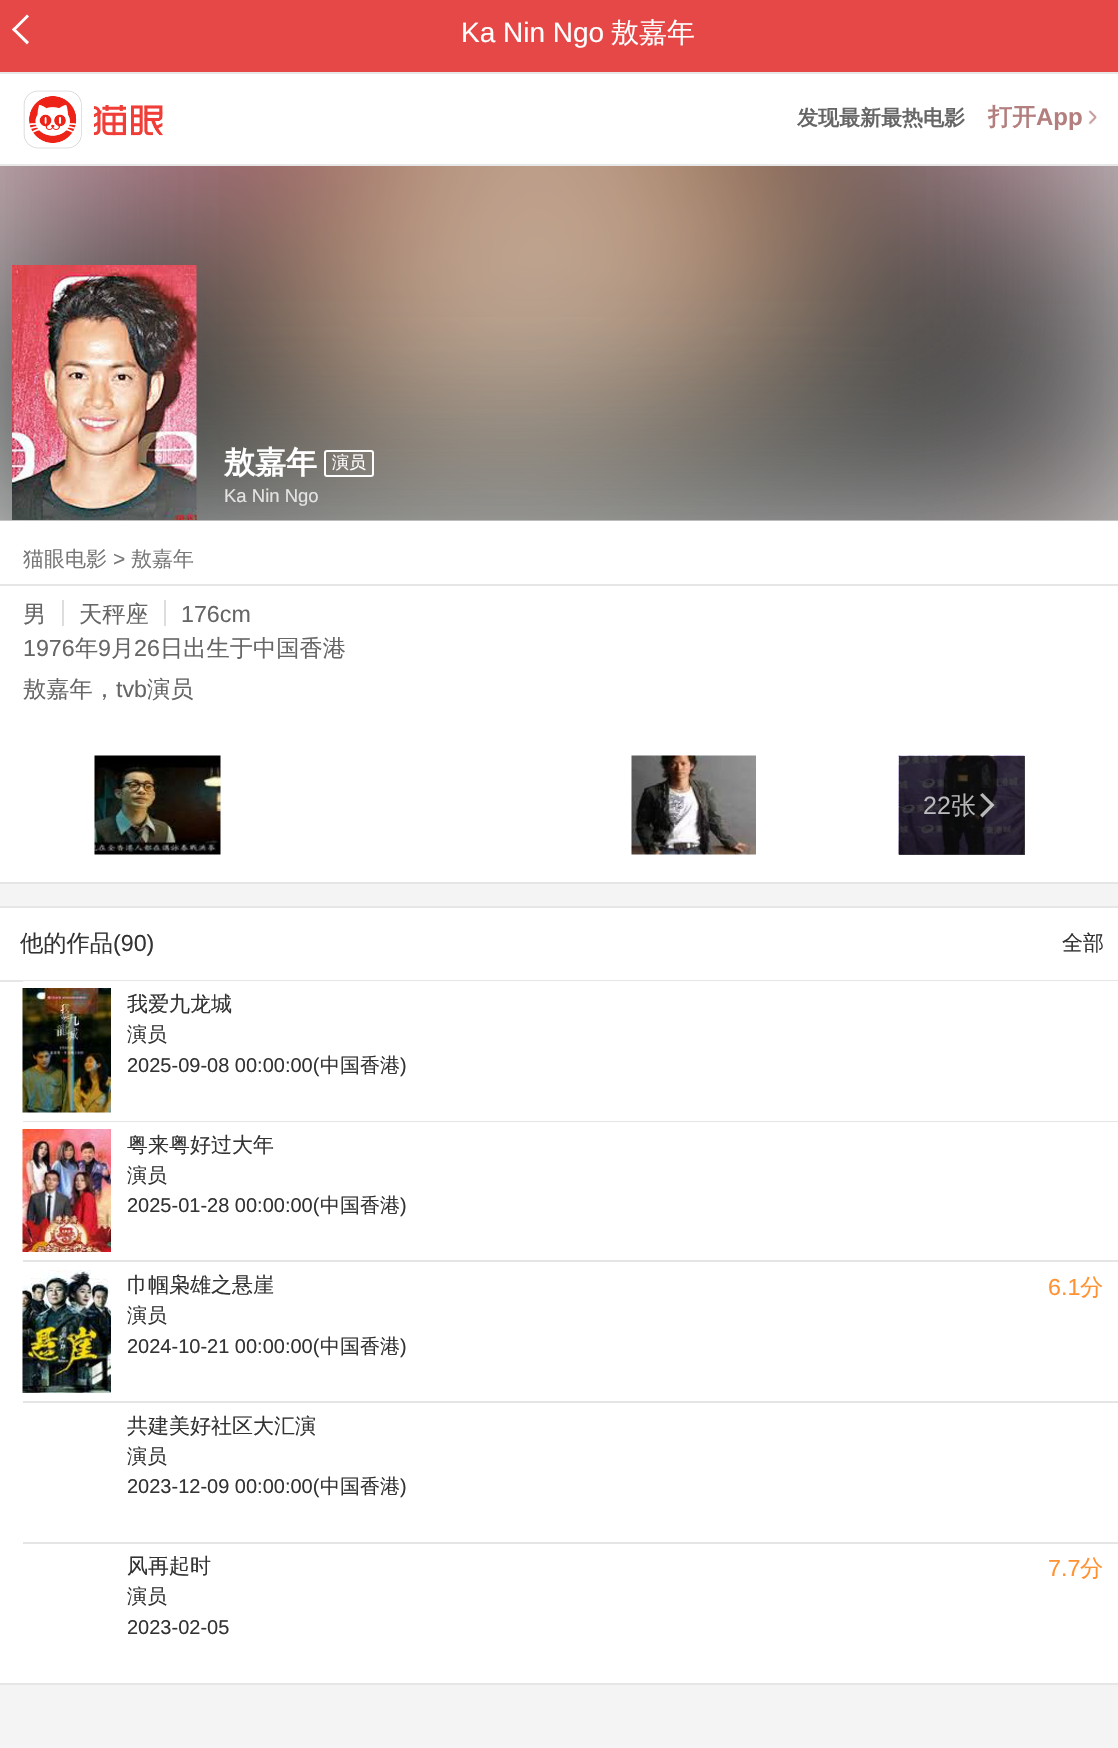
#include "include/core/SkBlurTypes.h"
#include "include/core/SkCanvas.h"
#include "include/core/SkData.h"
#include "include/core/SkFont.h"
#include "include/core/SkFontMgr.h"
#include "include/core/SkImage.h"
#include "include/core/SkMaskFilter.h"
#include "include/core/SkPaint.h"
#include "include/core/SkPathBuilder.h"
#include "include/core/SkTextBlob.h"
#include "include/effects/SkDashPathEffect.h"
#include "include/effects/SkGradientShader.h"
#include "include/utils/SkParsePath.h"

extern sk_sp<SkFontMgr> fontMgr;

void draw(SkCanvas* canvas) {
    SkPaint p;
    p.setAntiAlias(true);
    auto font = [&](const char* family, int weight, float size, bool italic = false) {
        SkFontStyle style(weight, SkFontStyle::kNormal_Width,
            italic ? SkFontStyle::kItalic_Slant : SkFontStyle::kUpright_Slant);
        SkFont result(fontMgr->matchFamilyStyle(family, style), size);
        result.setSubpixel(true);
        return result;
    };
    auto drawPhoto = [&](const char* path, float l, float t, float r, float b) {
        auto image = SkImages::DeferredFromEncodedData(SkData::MakeFromFileName(path));
        canvas->drawImageRect(image, SkRect::MakeLTRB(l, t, r, b), SkSamplingOptions());
    };
    canvas->clear(0xFFF4F4F4);
    {
        const struct { float l, t, r, b; SkColor color; } items[] = {
            {0, 0, 1118, 72, 0xFFE54847},
            {0, 521, 1118, 882, 0xFFFFFFFF},
            {0, 166, 1118, 521, 0xFFCCCCCC},
            {899, 756, 1025, 855, 0xFF4D4D4D},
        };
        for (auto [l, t, r, b, color] : items) {
            p.setColor(color);
            canvas->drawRect(SkRect::MakeLTRB(l, t, r, b), p);
        }
    }
    drawPhoto("media/5.png", 94, 755, 221, 855);
    drawPhoto("media/6.png", 631, 755, 756, 855);
    drawPhoto("media/7.png", 898, 755, 1025, 855);
    p.setColor(0xB3FFFFFF);
    canvas->drawPath(SkPathBuilder().moveTo(994.5f, 805).lineTo(982.5f, 793).lineTo(980, 795).lineTo(990, 805).lineTo(980, 815).lineTo(982.5f, 817.5f).close().detach(), p);
    canvas->save();
    canvas->clipRect(SkRect::MakeLTRB(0, 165, 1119, 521));
    p.setColor(0xFFADADAD);
    p.setMaskFilter(SkMaskFilter::MakeBlur(kNormal_SkBlurStyle, 92.5f));
    canvas->drawRect(SkRect::MakeLTRB(0, -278, 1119, 521), p);
    p.setMaskFilter(nullptr);
    canvas->restore();
    p.setColor(0xFFFFFFFF);
    canvas->drawPath(SkPathBuilder().moveTo(14, 27.5f).lineTo(29, 42).lineTo(27, 44.5f).lineTo(12, 29.5f).close().detach(), p);
    canvas->drawPath(SkPathBuilder().moveTo(27, 14.5f).lineTo(29, 16.5f).lineTo(14, 31.5f).lineTo(12, 29.5f).close().detach(), p);
    auto font1 = font("Liberation Sans", 400, 28);
    canvas->drawString("Ka Nin Ngo", 461, 42, font1, p);
    auto font2 = font("WenQuanYi Zen Hei", 500, 28);
    canvas->drawString("敖嘉年", 611, 42, font2, p);
    {
        const struct { float l, t, r, b; SkColor color; } items[] = {
            {0, 74, 1118, 164, 0xFFFFFFFF},
            {0, 72, 1118, 74, 0xFFE8E8E8},
            {0, 164, 1118, 166, 0xFFE8E8E8},
        };
        for (auto [l, t, r, b, color] : items) {
            p.setColor(color);
            canvas->drawRect(SkRect::MakeLTRB(l, t, r, b), p);
        }
    }
    drawPhoto("media/1.png", 23, 90, 163, 149);
    auto font3 = font("WenQuanYi Zen Hei", 700, 21);
    p.setColor(0xFF666666);
    canvas->drawString("发现最新最热电影", 797, 125, font3, p);
    auto font4 = font("WenQuanYi Zen Hei", 700, 24);
    p.setColor(0xFFB37E7E);
    canvas->drawString("打开", 988, 125, font4, p);
    auto font5 = font("Liberation Sans", 700, 24);
    canvas->drawString("App", 1036, 125, font5, p);
    drawPhoto("media/2.png", 1088, 110, 1097, 125);
    drawPhoto("media/3.png", 0, 166, 1118, 520);
    drawPhoto("media/4.png", 12, 265, 197, 520);
    auto font6 = font("WenQuanYi Zen Hei", 700, 31);
    p.setColor(0xFFFFFFFF);
    canvas->drawString("敖嘉年", 224, 473, font6, p);
    p.setStyle(SkPaint::kStroke_Style);
    p.setStrokeWidth(2);
    canvas->drawRoundRect(SkRect::MakeLTRB(325, 451, 373, 476), 2, 2, p);
    auto font7 = font("WenQuanYi Zen Hei", 500, 17);
    p.setStyle(SkPaint::kFill_Style);
    canvas->drawString("演员", 332, 468, font7, p);
    auto font8 = font("Liberation Sans", 400, 18.5f);
    p.setColor(0xFFE4E4E4);
    canvas->drawString("Ka Nin Ngo", 224, 502, font8, p);
    auto font9 = font("WenQuanYi Zen Hei", 500, 21);
    p.setColor(0xFF777777);
    canvas->drawString("猫眼电影", 23, 566, font9, p);
    auto font10 = font("Liberation Sans", 400, 21);
    canvas->drawString(">", 113, 566, font10, p);
    canvas->drawString("敖嘉年", 131, 566, font9, p);
    p.setColor(0xFFE5E5E5);
    canvas->drawRect(SkRect::MakeLTRB(0, 882, 1118, 884), p);
    p.setColor(0xFFE6E6E6);
    canvas->drawRect(SkRect::MakeLTRB(0, 584, 1118, 586), p);
    auto font11 = font("WenQuanYi Zen Hei", 500, 23.25f);
    p.setColor(0xFF666666);
    canvas->drawString("男", 23, 622, font11, p);
    canvas->drawString("天秤座", 79, 622, font11, p);
    p.setColor(0xFFDDDDDD);
    canvas->drawRect(SkRect::MakeLTRB(62, 600, 64, 626), p);
    auto font12 = font("Liberation Sans", 400, 23.25f);
    p.setColor(0xFF666666);
    canvas->drawString("176cm", 181, 622, font12, p);
    p.setColor(0xFFDDDDDD);
    canvas->drawRect(SkRect::MakeLTRB(164, 600, 166, 626), p);
    p.setColor(0xFF666666);
    canvas->drawString("1976", 23, 656, font12, p);
    canvas->drawString("年", 75, 656, font11, p);
    canvas->drawString("9", 98, 656, font12, p);
    canvas->drawString("月", 111, 656, font11, p);
    canvas->drawString("26", 134, 656, font12, p);
    canvas->drawString("日出生于中国香港", 160, 656, font11, p);
    canvas->drawString("敖嘉年，", 23, 697, font11, p);
    canvas->drawString("tvb", 116, 697, font12, p);
    canvas->drawString("演员", 147, 697, font11, p);
    auto font13 = font("Liberation Sans", 400, 25);
    p.setColor(0xFFBBBABD);
    canvas->drawString("22", 923, 814, font13, p);
    auto font14 = font("WenQuanYi Zen Hei", 500, 25);
    p.setColor(0xFFB6B6B7);
    canvas->drawString("张", 951, 814, font14, p);
    {
        const struct { float l, t, r, b; SkColor color; } items[] = {
            {0, 908, 1118, 1683, 0xFFFFFFFF},
            {0, 906, 1118, 908, 0xFFE6E6E6},
            {0, 1683, 1118, 1685, 0xFFE6E6E6},
            {0, 980, 1118, 982, 0xFFE6E6E6},
        };
        for (auto [l, t, r, b, color] : items) {
            p.setColor(color);
            canvas->drawRect(SkRect::MakeLTRB(l, t, r, b), p);
        }
    }
    p.setColor(0xFF333333);
    canvas->drawString("他的作品", 20, 951, font11, p);
    canvas->drawString("(90)", 113, 951, font12, p);
    canvas->drawString("全部", 1062, 950, font9, p);
    p.setColor(0xFFFFFFFF);
    canvas->drawRect(SkRect::MakeLTRB(23, 981, 1118, 982), p);
    p.setColor(0xFFE5E5E5);
    canvas->drawRect(SkRect::MakeLTRB(23, 1121, 1118, 1122), p);
    drawPhoto("media/8.png", 22, 988, 111, 1113);
    p.setColor(0xFF333333);
    canvas->drawString("我爱九龙城", 127, 1011, font9, p);
    auto font15 = font("WenQuanYi Zen Hei", 500, 20);
    canvas->drawString("演员", 127, 1041, font15, p);
    auto font16 = font("Liberation Sans", 400, 20);
    canvas->drawString("2025-09-08 00:00:00(", 127, 1072, font16, p);
    canvas->drawString("中国香港", 320, 1072, font15, p);
    canvas->drawString(")", 400, 1072, font16, p);
    p.setColor(0xFFE5E5E5);
    canvas->drawRect(SkRect::MakeLTRB(23, 1260, 1118, 1262), p);
    drawPhoto("media/9.png", 22, 1129, 111, 1252);
    p.setColor(0xFF333333);
    canvas->drawString("粤来粤好过大年", 127, 1152, font9, p);
    canvas->drawString("演员", 127, 1182, font15, p);
    canvas->drawString("2025-01-28 00:00:00(", 127, 1212, font16, p);
    canvas->drawString("中国香港", 320, 1212, font15, p);
    canvas->drawString(")", 400, 1212, font16, p);
    p.setColor(0xFFE5E5E5);
    canvas->drawRect(SkRect::MakeLTRB(23, 1401, 1118, 1403), p);
    drawPhoto("media/10.png", 22, 1270, 111, 1393);
    p.setColor(0xFF333333);
    canvas->drawString("巾帼枭雄之悬崖", 127, 1292, font9, p);
    p.setColor(0xFFFF9334);
    canvas->drawString("6.1", 1048, 1295, font12, p);
    canvas->drawString("分", 1080, 1295, font11, p);
    p.setColor(0xFF333333);
    canvas->drawString("演员", 127, 1322, font15, p);
    canvas->drawString("2024-10-21 00:00:00(", 127, 1353, font16, p);
    canvas->drawString("中国香港", 320, 1353, font15, p);
    canvas->drawString(")", 400, 1353, font16, p);
    p.setColor(0xFFE5E5E5);
    canvas->drawRect(SkRect::MakeLTRB(23, 1542, 1118, 1544), p);
    p.setColor(0xFF333333);
    canvas->drawString("共建美好社区大汇演", 127, 1433, font9, p);
    canvas->drawString("演员", 127, 1463, font15, p);
    canvas->drawString("2023-12-09 00:00:00(", 127, 1493, font16, p);
    canvas->drawString("中国香港", 320, 1493, font15, p);
    canvas->drawString(")", 400, 1493, font16, p);
    canvas->drawString("风再起时", 127, 1573, font9, p);
    p.setColor(0xFFFF9334);
    canvas->drawString("7.7", 1048, 1576, font12, p);
    canvas->drawString("分", 1080, 1576, font11, p);
    p.setColor(0xFF333333);
    canvas->drawString("演员", 127, 1603, font15, p);
    canvas->drawString("2023-02-05", 127, 1634, font16, p);
}
